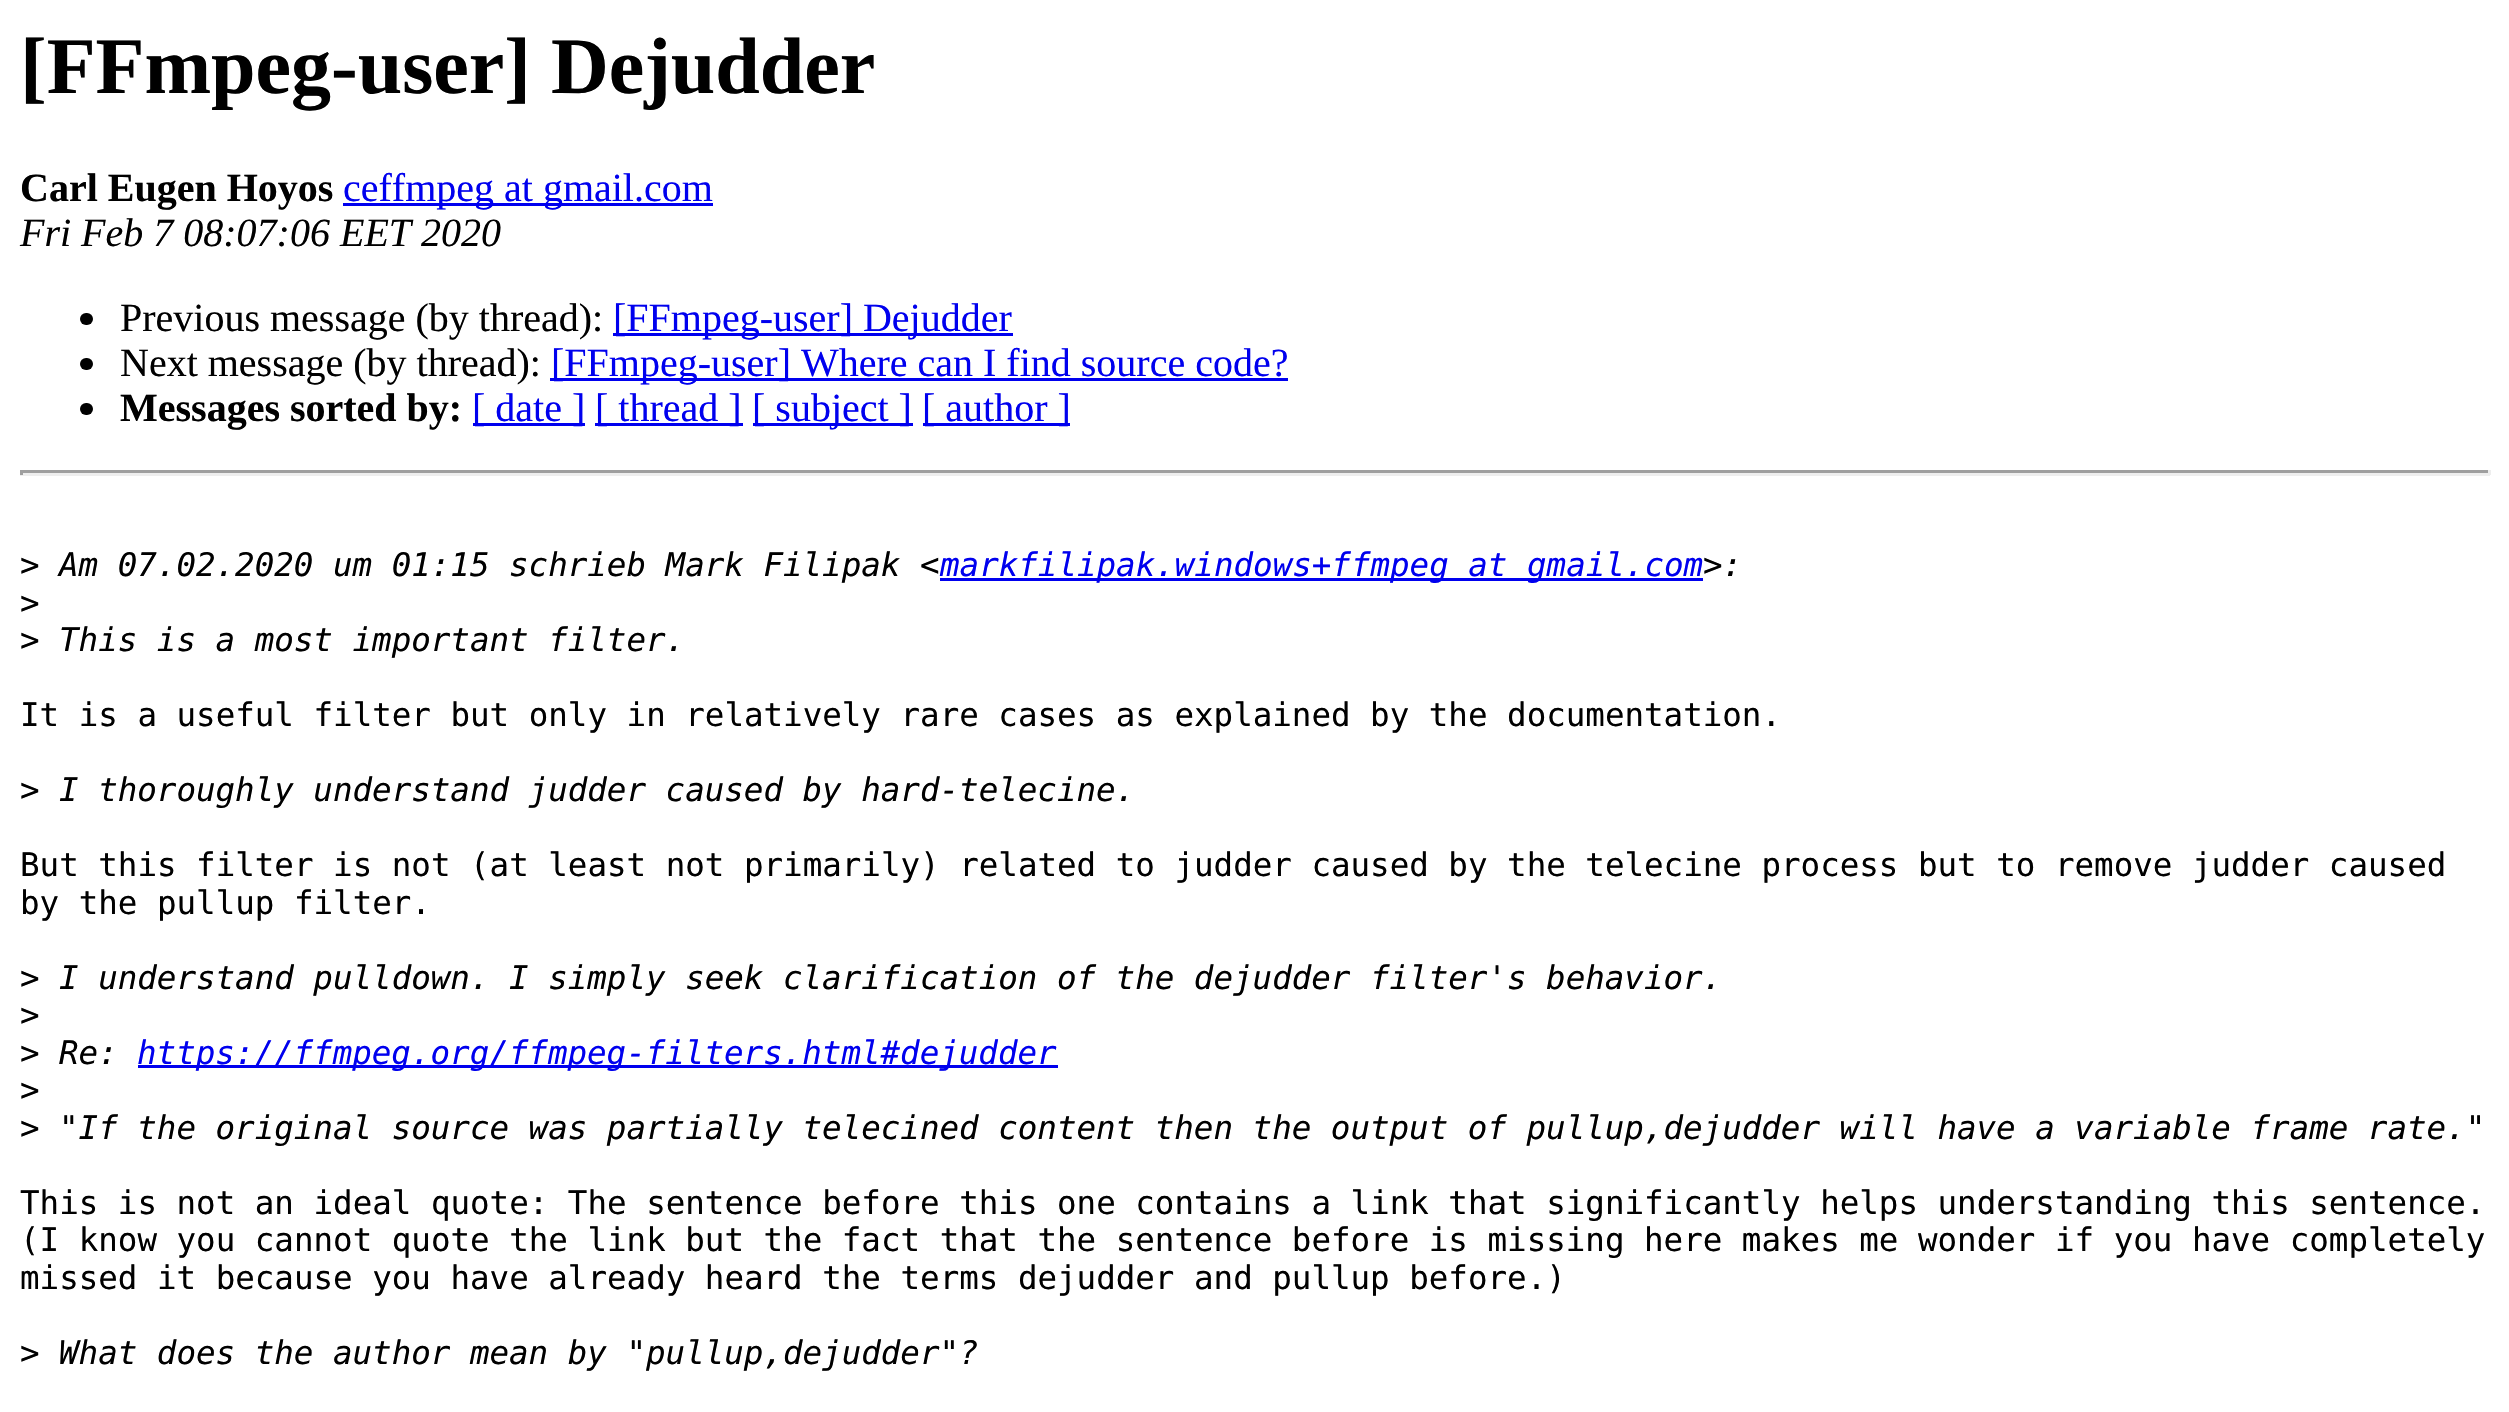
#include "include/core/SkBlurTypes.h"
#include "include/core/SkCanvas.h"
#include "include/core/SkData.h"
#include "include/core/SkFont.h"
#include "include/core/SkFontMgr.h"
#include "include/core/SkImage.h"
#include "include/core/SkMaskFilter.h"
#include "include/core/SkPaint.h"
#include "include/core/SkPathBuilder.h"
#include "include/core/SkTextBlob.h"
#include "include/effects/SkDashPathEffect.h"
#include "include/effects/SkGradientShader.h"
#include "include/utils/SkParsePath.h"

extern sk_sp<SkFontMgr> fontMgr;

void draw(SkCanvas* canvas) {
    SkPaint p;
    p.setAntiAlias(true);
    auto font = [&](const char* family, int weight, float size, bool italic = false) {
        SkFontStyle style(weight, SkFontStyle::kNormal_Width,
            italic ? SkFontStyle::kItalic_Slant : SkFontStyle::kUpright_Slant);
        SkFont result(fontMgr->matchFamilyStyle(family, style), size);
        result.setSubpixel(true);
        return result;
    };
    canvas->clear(0xFFFFFFFF);
    auto font1 = font("Liberation Serif", 700, 80);
    p.setColor(0xFF000000);
    canvas->drawString("[FFmpeg-user] Dejudder", 20, 93, font1, p);
    auto font2 = font("Liberation Serif", 700, 40);
    canvas->drawString("Carl Eugen Hoyos", 20, 201, font2, p);
    p.setColor(0xFF0000EE);
    canvas->drawRect(SkRect::MakeLTRB(343, 203, 713, 206), p);
    auto font3 = font("Liberation Serif", 400, 40);
    canvas->drawString("ceffmpeg at gmail.com", 343, 201, font3, p);
    auto font4 = font("Liberation Serif", 400, 40, true);
    p.setColor(0xFF000000);
    canvas->drawString("Fri Feb 7 08:07:06 EET 2020", 20, 246, font4, p);
    canvas->drawRoundRect(SkRect::MakeLTRB(80, 313, 93, 325), 6, 6, p);
    canvas->drawString("Previous message (by thread):", 120, 331, font3, p);
    p.setColor(0xFF0000EE);
    canvas->drawRect(SkRect::MakeLTRB(613, 333, 1013, 336), p);
    canvas->drawString("[FFmpeg-user] Dejudder", 613, 331, font3, p);
    p.setColor(0xFF000000);
    canvas->drawRoundRect(SkRect::MakeLTRB(80, 358, 93, 370), 6, 6, p);
    canvas->drawString("Next message (by thread):", 120, 376, font3, p);
    p.setColor(0xFF0000EE);
    canvas->drawRect(SkRect::MakeLTRB(550, 378, 1288, 381), p);
    canvas->drawString("[FFmpeg-user] Where can I find source code?", 551, 376, font3, p);
    p.setColor(0xFF000000);
    canvas->drawRoundRect(SkRect::MakeLTRB(80, 403, 93, 415), 6, 6, p);
    canvas->drawString("Messages sorted by:", 120, 421, font2, p);
    p.setColor(0xFF0000EE);
    canvas->drawRect(SkRect::MakeLTRB(473, 423, 585, 426), p);
    canvas->drawString("[ date ]", 472, 421, font3, p);
    canvas->drawRect(SkRect::MakeLTRB(595, 423, 743, 426), p);
    canvas->drawString("[ thread ]", 595, 421, font3, p);
    canvas->drawRect(SkRect::MakeLTRB(753, 423, 913, 426), p);
    canvas->drawString("[ subject ]", 752, 421, font3, p);
    canvas->drawRect(SkRect::MakeLTRB(923, 423, 1070, 426), p);
    canvas->drawString("[ author ]", 922, 421, font3, p);
    {
        const struct { float l, t, r, b; SkColor color; } items[] = {
            {20, 470, 2490, 473, 0xFF9F9F9F},
            {2488, 470, 2491, 475, 0xFFEEEEEE},
            {20, 473, 2490, 476, 0xFFEEEEEE},
            {20, 470, 23, 475, 0xFF9F9F9F},
        };
        for (auto [l, t, r, b, color] : items) {
            p.setColor(color);
            canvas->drawRect(SkRect::MakeLTRB(l, t, r, b), p);
        }
    }
    auto font5 = font("DejaVu Sans Mono", 400, 32.5f);
    p.setColor(0xFF000000);
    canvas->drawString(">", 20, 576, font5, p);
    auto font6 = font("DejaVu Sans Mono", 400, 32.5f, true);
    canvas->drawString("Am 07.02.2020 um 01:15 schrieb Mark Filipak <", 59, 576, font6, p);
    p.setColor(0xFF0000EE);
    canvas->drawRect(SkRect::MakeLTRB(940, 578, 1703, 581), p);
    canvas->drawString("markfilipak.windows+ffmpeg at gmail.com", 940, 576, font6, p);
    p.setColor(0xFF000000);
    canvas->drawString(">:", 1703, 576, font6, p);
    canvas->drawString(">", 20, 614, font5, p);
    canvas->drawString(">", 20, 651, font5, p);
    canvas->drawString("This is a most important filter.", 59, 651, font6, p);
    canvas->drawString("It is a useful filter but only in relatively rare cases as explained by the documentation.", 20, 726, font5, p);
    canvas->drawString(">", 20, 801, font5, p);
    canvas->drawString("I thoroughly understand judder caused by hard-telecine.", 59, 801, font6, p);
    {
        const struct { const char* s; float x, y; } items[] = {
            {"But this filter is not (at least not primarily) related to judder caused by the telecine process but to remove judder caused", 20, 876},
            {"by the pullup filter.", 20, 914},
            {">", 20, 989},
        };
        for (auto [s, x, y] : items) {
            canvas->drawString(s, x, y, font5, p);
        }
    }
    canvas->drawString("I understand pulldown. I simply seek clarification of the dejudder filter's behavior.", 59, 989, font6, p);
    canvas->drawString(">", 20, 1026, font5, p);
    canvas->drawString(">", 20, 1064, font5, p);
    canvas->drawString("Re:", 59, 1064, font6, p);
    p.setColor(0xFF0000EE);
    canvas->drawRect(SkRect::MakeLTRB(138, 1065, 1058, 1068), p);
    canvas->drawString("https://ffmpeg.org/ffmpeg-filters.html#dejudder", 137, 1064, font6, p);
    p.setColor(0xFF000000);
    canvas->drawString(">", 20, 1101, font5, p);
    canvas->drawString(">", 20, 1139, font5, p);
    canvas->drawString("\"If the original source was partially telecined content then the output of pullup,dejudder will have a variable frame rate.\"", 59, 1139, font6, p);
    {
        const struct { const char* s; float x, y; } items[] = {
            {"This is not an ideal quote: The sentence before this one contains a link that significantly helps understanding this sentence.", 20, 1214},
            {"(I know you cannot quote the link but the fact that the sentence before is missing here makes me wonder if you have completely", 20, 1251},
            {"missed it because you have already heard the terms dejudder and pullup before.)", 20, 1289},
            {">", 20, 1364},
        };
        for (auto [s, x, y] : items) {
            canvas->drawString(s, x, y, font5, p);
        }
    }
    canvas->drawString("What does the author mean by \"pullup,dejudder\"?", 59, 1364, font6, p);
}
